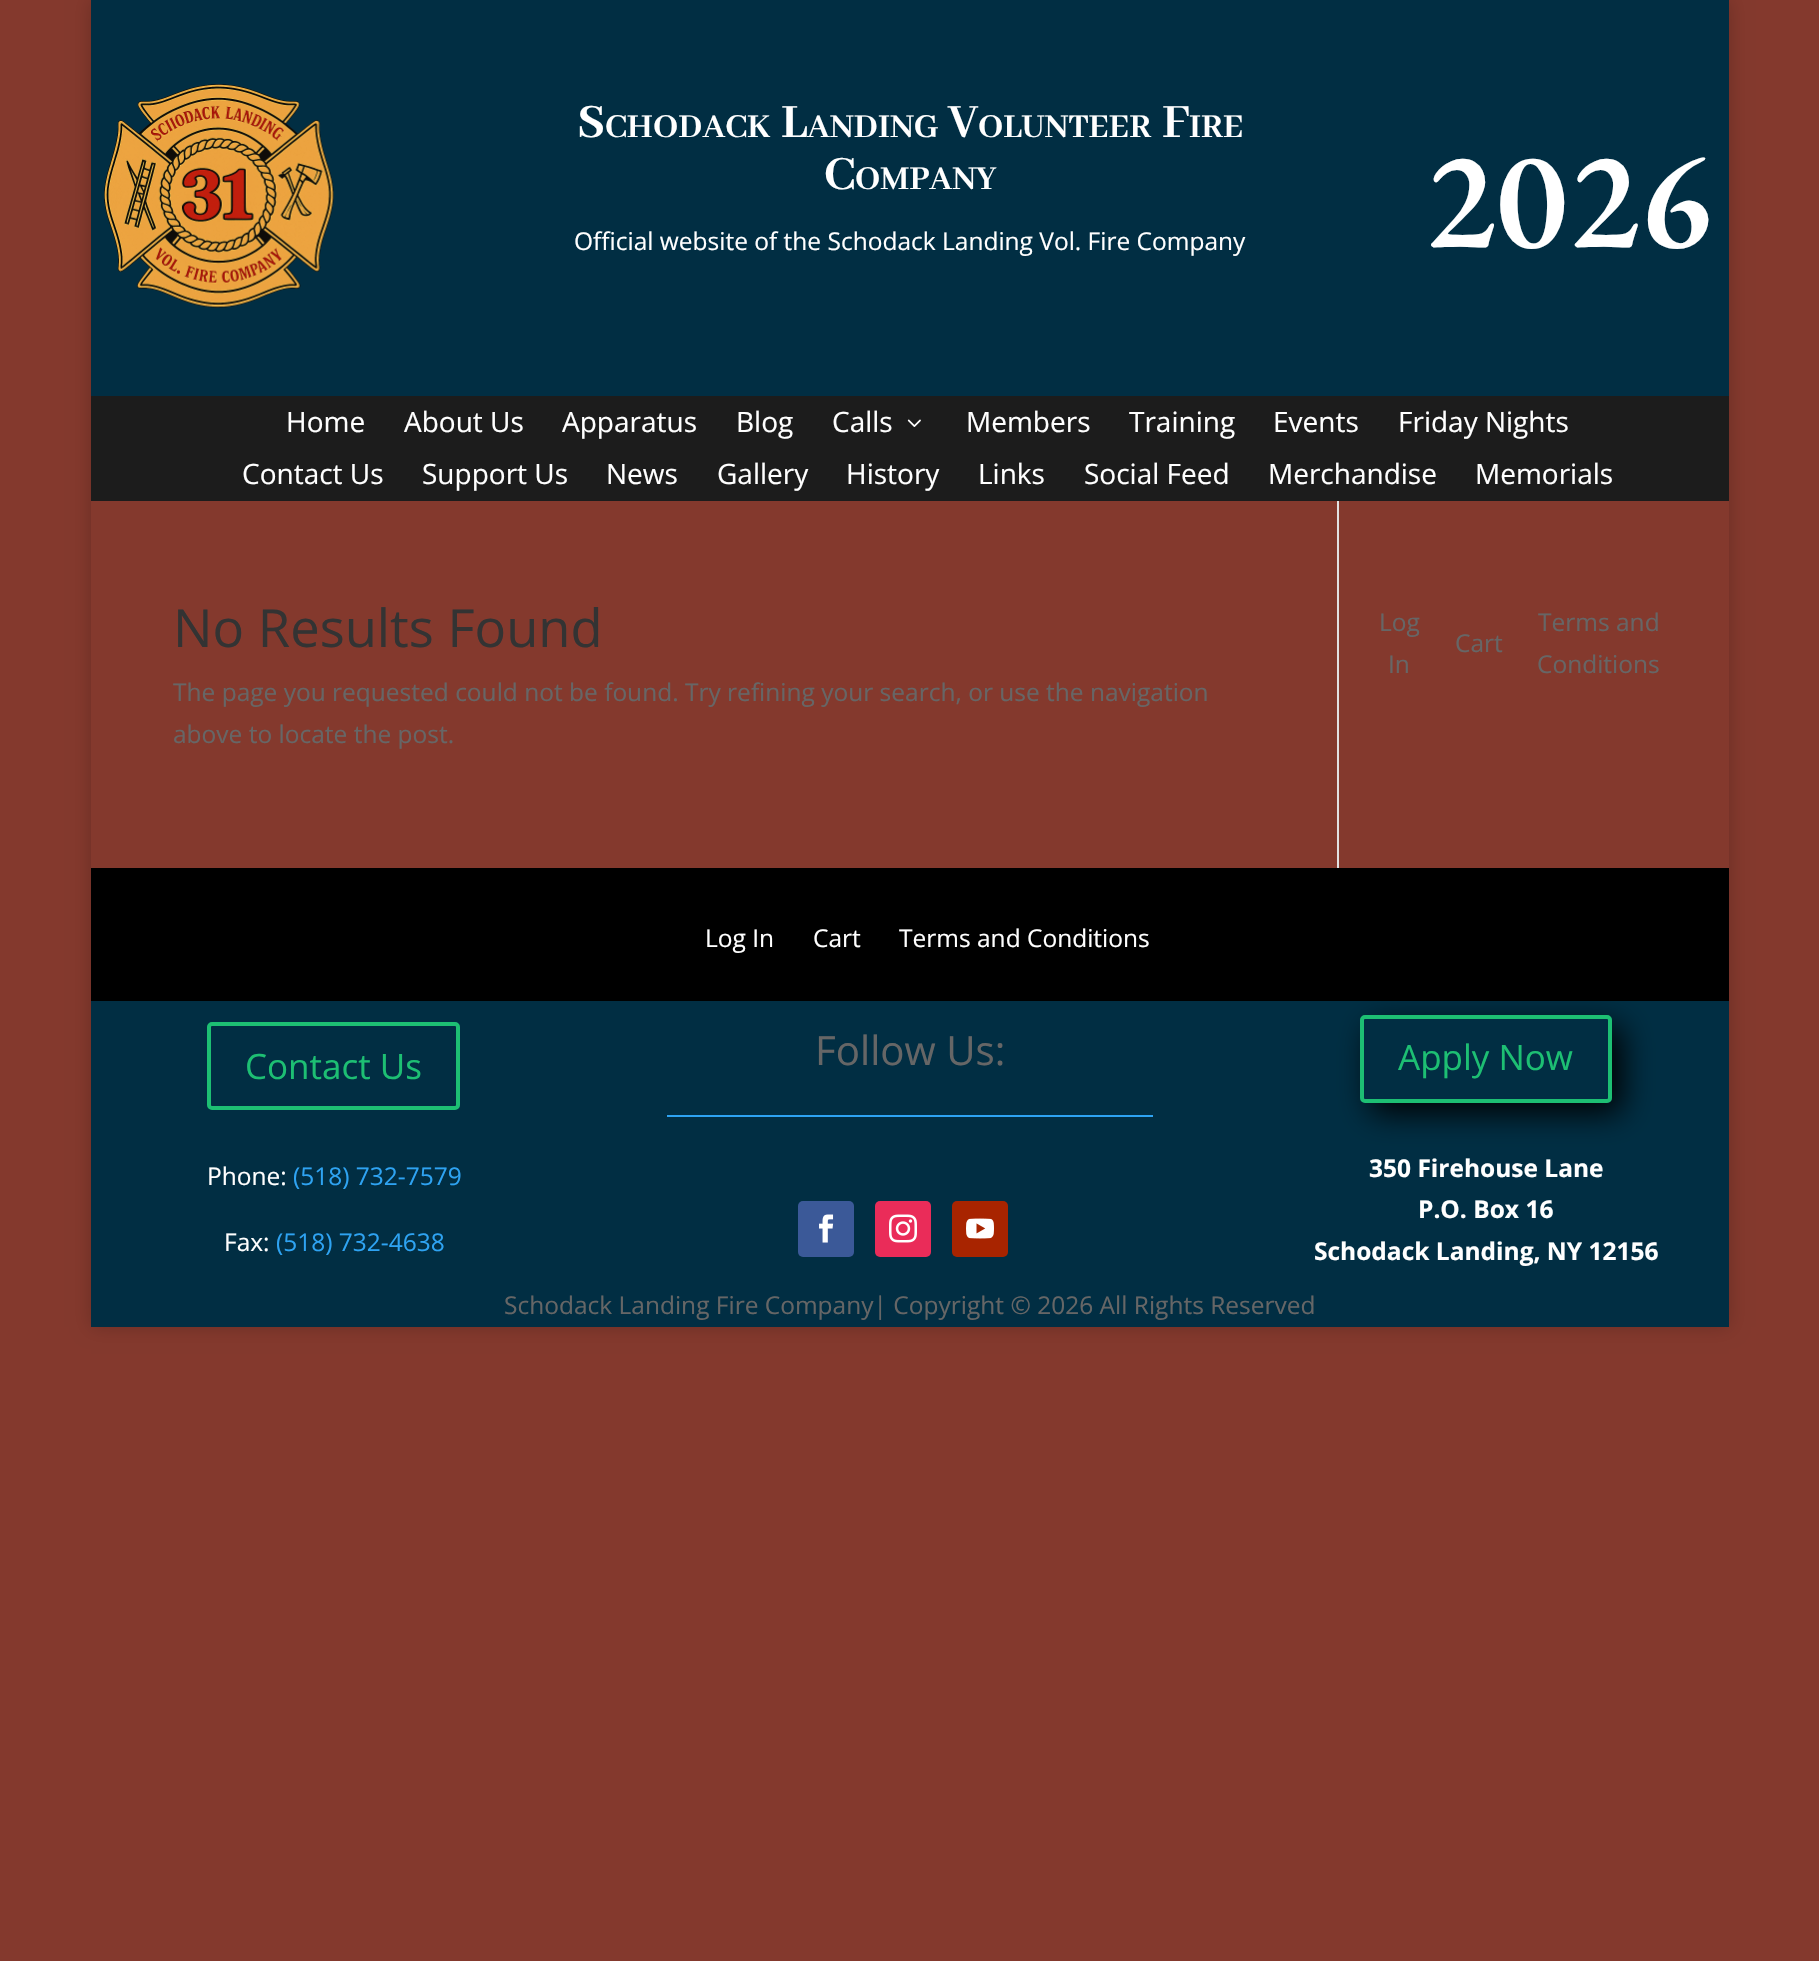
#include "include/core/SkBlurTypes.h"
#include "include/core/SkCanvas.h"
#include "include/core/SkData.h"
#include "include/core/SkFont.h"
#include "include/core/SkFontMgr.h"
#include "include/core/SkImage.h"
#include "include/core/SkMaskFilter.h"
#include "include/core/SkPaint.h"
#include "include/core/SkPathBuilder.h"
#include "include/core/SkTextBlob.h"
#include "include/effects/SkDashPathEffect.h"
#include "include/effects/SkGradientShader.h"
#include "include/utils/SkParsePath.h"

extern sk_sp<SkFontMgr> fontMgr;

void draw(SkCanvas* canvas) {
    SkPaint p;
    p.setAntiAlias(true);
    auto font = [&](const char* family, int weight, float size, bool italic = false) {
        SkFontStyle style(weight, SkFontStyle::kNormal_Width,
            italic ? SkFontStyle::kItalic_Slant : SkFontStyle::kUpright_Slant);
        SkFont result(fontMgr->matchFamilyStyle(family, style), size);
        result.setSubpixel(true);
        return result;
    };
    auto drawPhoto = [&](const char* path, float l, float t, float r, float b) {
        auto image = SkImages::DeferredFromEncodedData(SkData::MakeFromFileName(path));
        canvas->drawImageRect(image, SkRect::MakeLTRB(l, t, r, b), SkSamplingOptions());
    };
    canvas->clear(0xFF84392D);
    canvas->save();
    canvas->clipPath(SkPathBuilder(SkPathFillType::kEvenOdd).moveTo(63, 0).lineTo(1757, 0).lineTo(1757, 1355).lineTo(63, 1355).close().moveTo(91, 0).lineTo(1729, 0).lineTo(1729, 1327).lineTo(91, 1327).close().detach(), true);
    p.setColor(0x33000000);
    p.setMaskFilter(SkMaskFilter::MakeBlur(kNormal_SkBlurStyle, 9));
    canvas->drawRect(SkRect::MakeLTRB(91, 0, 1729, 1327), p);
    p.setMaskFilter(nullptr);
    canvas->restore();
    p.setColor(0xFF012E43);
    canvas->drawRect(SkRect::MakeLTRB(91, 0, 1729, 396), p);
    drawPhoto("media/1.png", 104, 84, 334, 308);
    auto font1 = font("Abhaya Libre", 700, 52.5f);
    p.setColor(0xFFFFFFFF);
    canvas->drawString("S", 577, 137, font1, p);
    auto font2 = font("Abhaya Libre", 700, 36.75f);
    canvas->drawString("CHODACK", 605, 137, font2, p);
    canvas->drawString("L", 781, 137, font1, p);
    canvas->drawString("ANDING", 807, 137, font2, p);
    canvas->drawString("V", 948, 137, font1, p);
    canvas->drawString("OLUNTEER", 978, 137, font2, p);
    canvas->drawString("F", 1162, 137, font1, p);
    canvas->drawString("IRE", 1189, 137, font2, p);
    canvas->drawString("C", 824, 189, font1, p);
    canvas->drawString("OMPANY", 855, 189, font2, p);
    auto font3 = font("Open Sans", 400, 24.5f);
    canvas->drawString("Official website of the Schodack Landing Vol. Fire Company", 574, 250, font3, p);
    auto font4 = font("EB Garamond", 600, 140);
    canvas->drawString("2026", 1424, 247, font4, p);
    p.setColor(0xFF1C1C1C);
    canvas->drawRect(SkRect::MakeLTRB(91, 396, 1729, 501), p);
    auto font5 = font("Open Sans", 400, 28);
    p.setColor(0xFFFFFFFF);
    {
        const struct { const char* s; float x, y; } items[] = {
            {"Home", 286, 432},
            {"About Us", 404, 432},
            {"Apparatus", 562, 432},
            {"Blog", 736, 432},
            {"Calls", 832, 432},
        };
        for (auto [s, x, y] : items) {
            canvas->drawString(s, x, y, font5, p);
        }
    }
    drawPhoto("media/2.png", 907, 419, 921, 427);
    {
        const struct { const char* s; float x, y; } items[] = {
            {"Members", 966, 432},
            {"Training", 1129, 432},
            {"Events", 1273, 432},
            {"Friday Nights", 1398, 432},
            {"Contact Us", 242, 484},
            {"Support Us", 422, 484},
            {"News", 606, 484},
            {"Gallery", 717, 484},
            {"History", 846, 484},
            {"Links", 978, 484},
            {"Social Feed", 1084, 484},
            {"Merchandise", 1268, 484},
            {"Memorials", 1475, 484},
        };
        for (auto [s, x, y] : items) {
            canvas->drawString(s, x, y, font5, p);
        }
    }
    p.setColor(0xFFE2E2E2);
    canvas->drawRect(SkRect::MakeLTRB(1337, 501, 1339, 868), p);
    auto font6 = font("Open Sans", 400, 52.5f);
    p.setColor(0xFF333333);
    canvas->drawString("No Results Found", 173, 647, font6, p);
    p.setColor(0xFF666666);
    {
        const struct { const char* s; float x, y; } items[] = {
            {"The page you requested could not be found. Try refining your search, or use the navigation", 173, 701},
            {"above to locate the post.", 173, 743},
            {"Log", 1379, 631},
            {"In", 1388, 673},
            {"Cart", 1455, 652},
            {"Terms and", 1538, 631},
            {"Conditions", 1537, 673},
        };
        for (auto [s, x, y] : items) {
            canvas->drawString(s, x, y, font3, p);
        }
    }
    p.setColor(0xFF000000);
    canvas->drawRect(SkRect::MakeLTRB(91, 868, 1729, 1001), p);
    p.setColor(0xFFFFFFFF);
    {
        const struct { const char* s; float x, y; } items[] = {
            {"Log In", 705, 947},
            {"Cart", 813, 947},
            {"Terms and Conditions", 899, 947},
        };
        for (auto [s, x, y] : items) {
            canvas->drawString(s, x, y, font3, p);
        }
    }
    p.setColor(0xFF012E43);
    canvas->drawRect(SkRect::MakeLTRB(91, 1001, 1729, 1327), p);
    p.setStyle(SkPaint::kStroke_Style);
    p.setStrokeWidth(4);
    p.setColor(0xFF1DBF73);
    canvas->drawRoundRect(SkRect::MakeLTRB(209, 1024, 458, 1108), 3, 3, p);
    auto font7 = font("Open Sans", 400, 35);
    p.setStyle(SkPaint::kFill_Style);
    canvas->drawString("Contact Us", 245, 1079, font7, p);
    p.setColor(0xFFFFFFFF);
    canvas->drawString("Phone:", 207, 1185, font3, p);
    p.setColor(0xFF2EA3F2);
    canvas->drawString("(518) 732-7579", 293, 1185, font3, p);
    p.setColor(0xFFFFFFFF);
    canvas->drawString("Fax:", 224, 1251, font3, p);
    p.setColor(0xFF2EA3F2);
    canvas->drawString("(518) 732-4638", 276, 1251, font3, p);
    auto font8 = font("Open Sans", 400, 40.25f);
    p.setColor(0xFF666666);
    canvas->drawString("Follow Us:", 815, 1065, font8, p);
    p.setColor(0xFF2EA3F2);
    canvas->drawRect(SkRect::MakeLTRB(667, 1115, 1153, 1117), p);
    p.setColor(0xFF3B5998);
    canvas->drawRoundRect(SkRect::MakeLTRB(798, 1201, 854, 1257), 5, 5, p);
    drawPhoto("media/3.png", 819, 1214, 834, 1243);
    p.setColor(0xFFEA2C59);
    canvas->drawRoundRect(SkRect::MakeLTRB(875, 1201, 931, 1257), 5, 5, p);
    drawPhoto("media/4.png", 889, 1214, 917, 1243);
    p.setColor(0xFFA82400);
    canvas->drawRoundRect(SkRect::MakeLTRB(952, 1201, 1008, 1257), 5, 5, p);
    drawPhoto("media/5.png", 966, 1218, 994, 1239);
    canvas->save();
    canvas->clipPath(SkPathBuilder(SkPathFillType::kEvenOdd).moveTo(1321, 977).lineTo(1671, 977).lineTo(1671, 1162).lineTo(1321, 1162).close().moveTo(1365, 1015).lineTo(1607, 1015).cubicTo(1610, 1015, 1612, 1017, 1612, 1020).lineTo(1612, 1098).cubicTo(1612, 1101, 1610, 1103, 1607, 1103).lineTo(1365, 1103).cubicTo(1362, 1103, 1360, 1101, 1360, 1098).lineTo(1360, 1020).cubicTo(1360, 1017, 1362, 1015, 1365, 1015).close().detach(), true);
    p.setColor(0xFF000000);
    p.setMaskFilter(SkMaskFilter::MakeBlur(kNormal_SkBlurStyle, 16));
    canvas->drawRoundRect(SkRect::MakeLTRB(1370, 1026, 1622, 1113), 5, 5, p);
    p.setMaskFilter(nullptr);
    canvas->restore();
    p.setStyle(SkPaint::kStroke_Style);
    p.setColor(0xFF1DBF73);
    canvas->drawRoundRect(SkRect::MakeLTRB(1362, 1017, 1610, 1101), 3, 3, p);
    p.setStyle(SkPaint::kFill_Style);
    canvas->drawString("Apply Now", 1398, 1070, font7, p);
    auto font9 = font("Open Sans", 700, 24.5f);
    p.setColor(0xFFFFFFFF);
    {
        const struct { const char* s; float x, y; } items[] = {
            {"350 Firehouse Lane", 1369, 1177},
            {"P.O. Box 16", 1418, 1218},
            {"Schodack Landing, NY 12156", 1314, 1260},
        };
        for (auto [s, x, y] : items) {
            canvas->drawString(s, x, y, font9, p);
        }
    }
    p.setColor(0xFF666666);
    canvas->drawString("Schodack Landing Fire Company| Copyright © 2026 All Rights Reserved", 504, 1314, font3, p);
}
